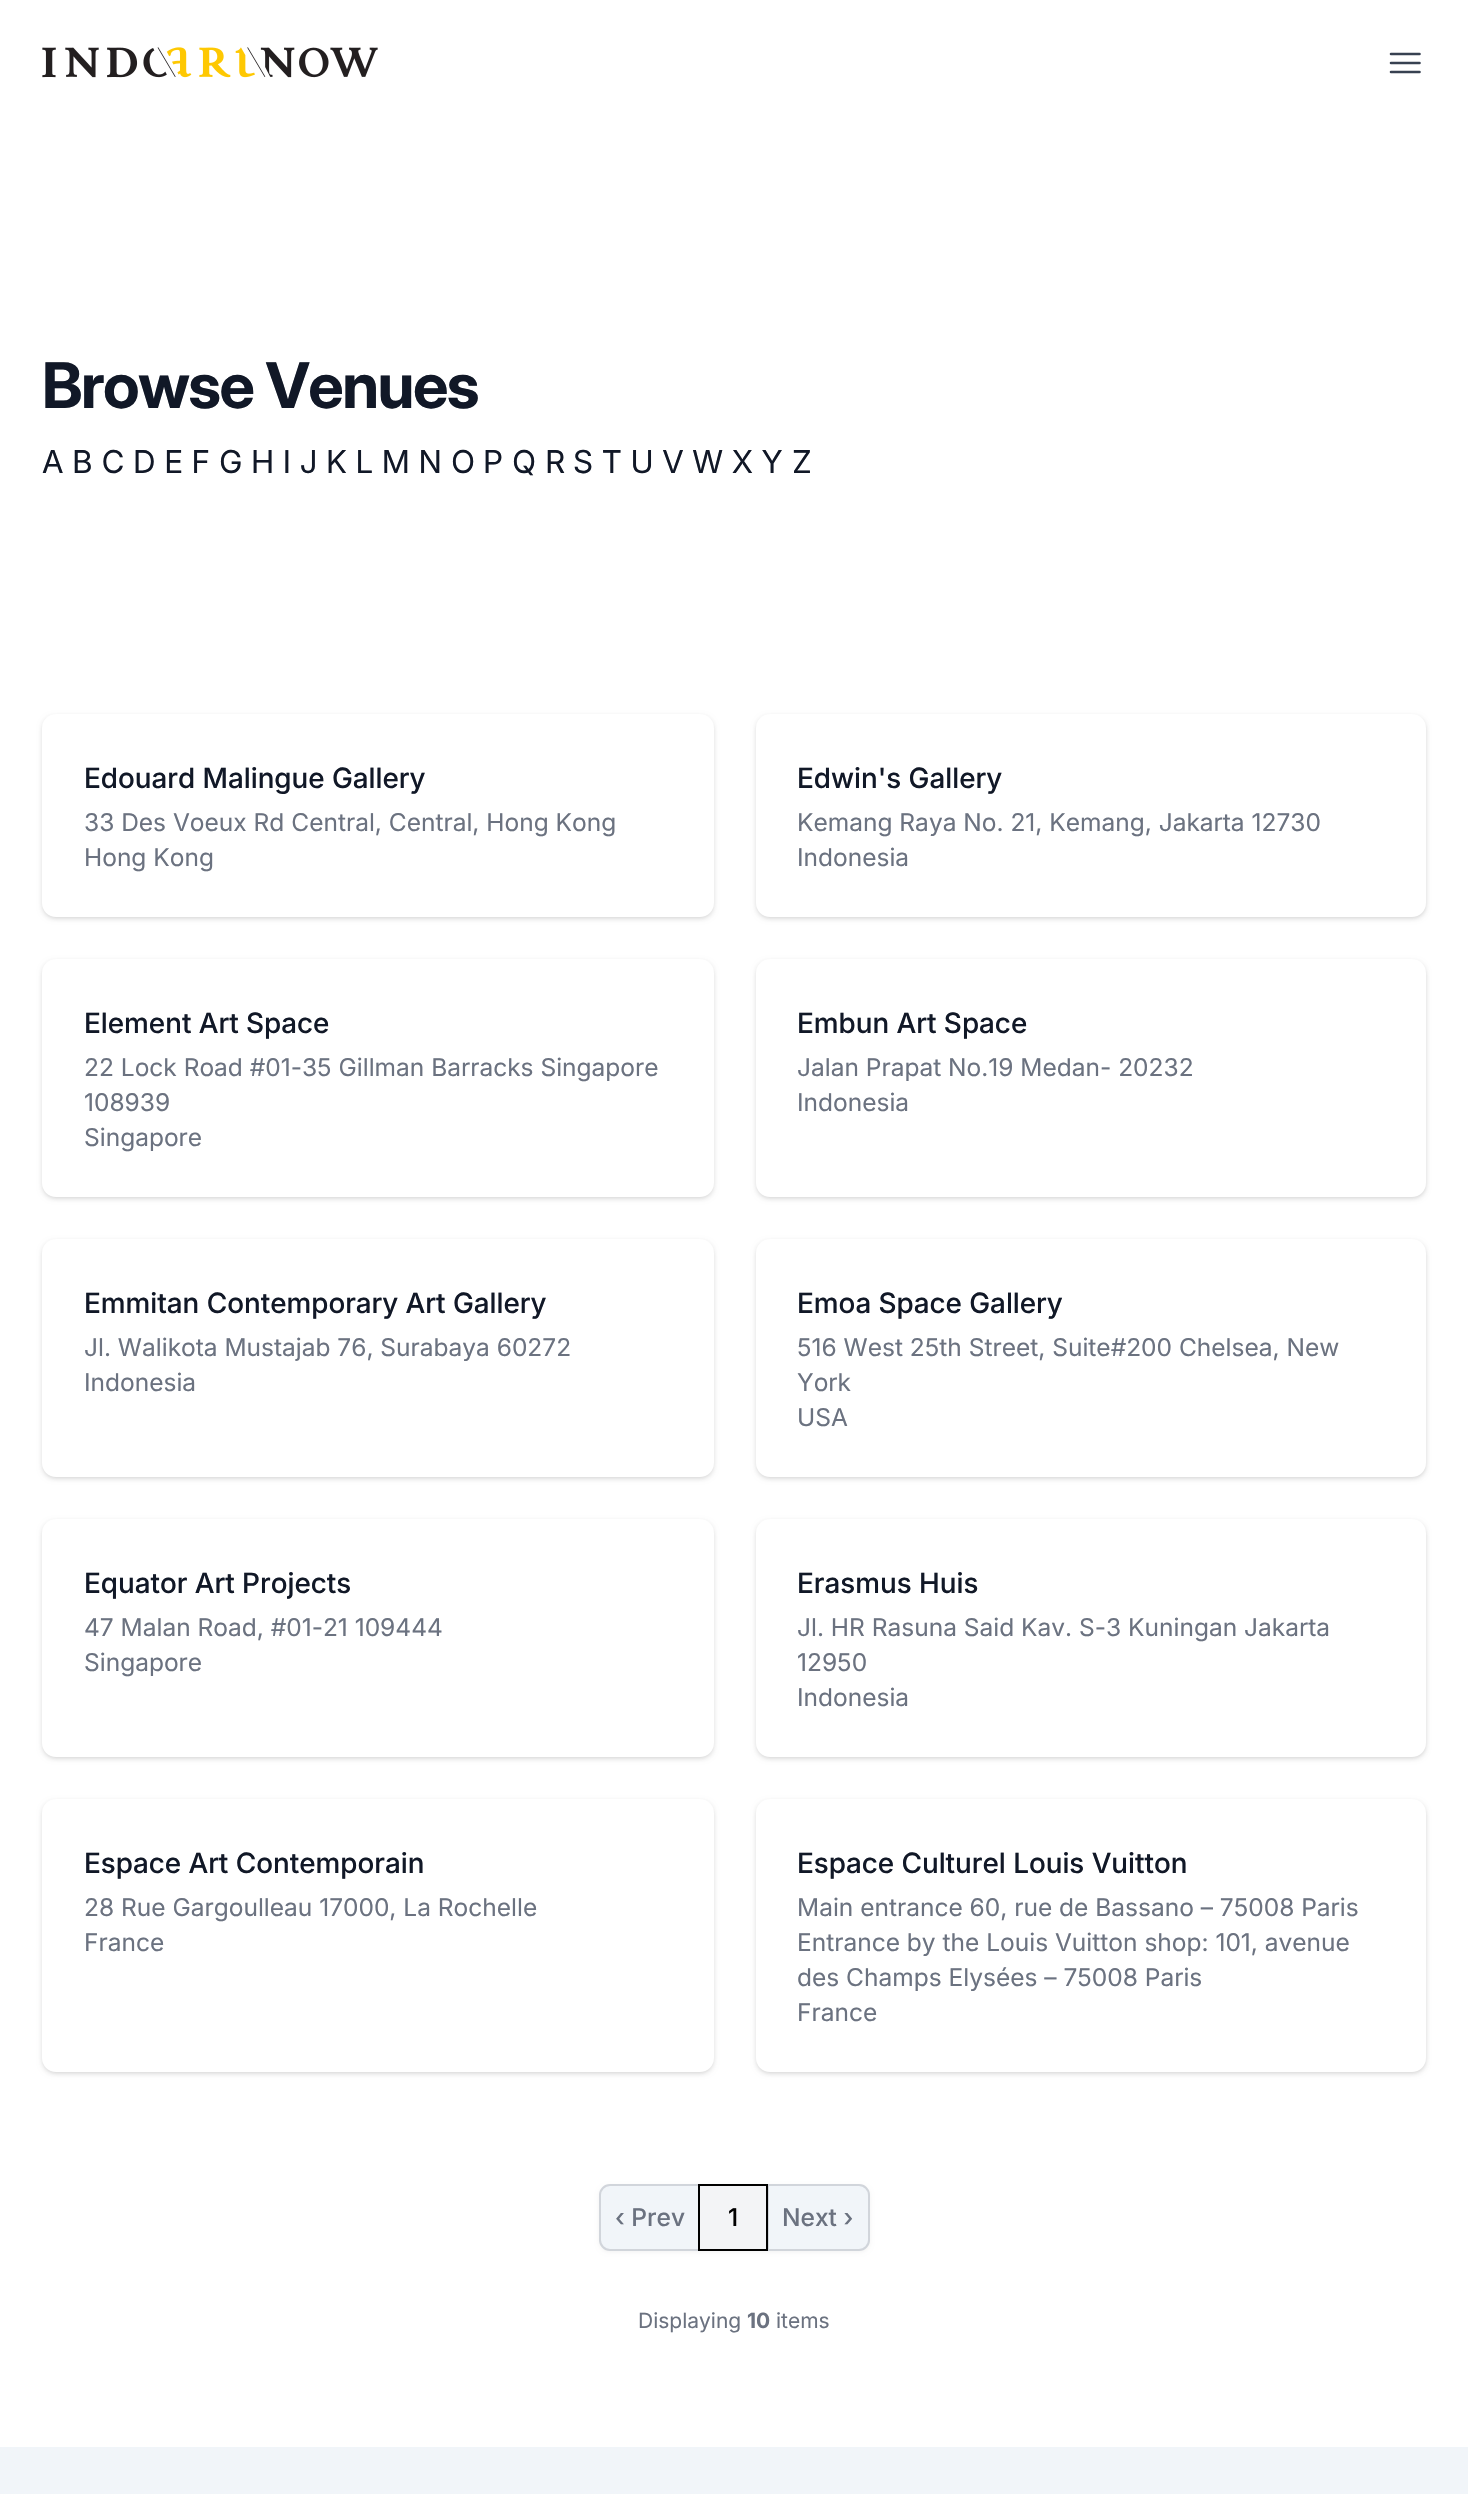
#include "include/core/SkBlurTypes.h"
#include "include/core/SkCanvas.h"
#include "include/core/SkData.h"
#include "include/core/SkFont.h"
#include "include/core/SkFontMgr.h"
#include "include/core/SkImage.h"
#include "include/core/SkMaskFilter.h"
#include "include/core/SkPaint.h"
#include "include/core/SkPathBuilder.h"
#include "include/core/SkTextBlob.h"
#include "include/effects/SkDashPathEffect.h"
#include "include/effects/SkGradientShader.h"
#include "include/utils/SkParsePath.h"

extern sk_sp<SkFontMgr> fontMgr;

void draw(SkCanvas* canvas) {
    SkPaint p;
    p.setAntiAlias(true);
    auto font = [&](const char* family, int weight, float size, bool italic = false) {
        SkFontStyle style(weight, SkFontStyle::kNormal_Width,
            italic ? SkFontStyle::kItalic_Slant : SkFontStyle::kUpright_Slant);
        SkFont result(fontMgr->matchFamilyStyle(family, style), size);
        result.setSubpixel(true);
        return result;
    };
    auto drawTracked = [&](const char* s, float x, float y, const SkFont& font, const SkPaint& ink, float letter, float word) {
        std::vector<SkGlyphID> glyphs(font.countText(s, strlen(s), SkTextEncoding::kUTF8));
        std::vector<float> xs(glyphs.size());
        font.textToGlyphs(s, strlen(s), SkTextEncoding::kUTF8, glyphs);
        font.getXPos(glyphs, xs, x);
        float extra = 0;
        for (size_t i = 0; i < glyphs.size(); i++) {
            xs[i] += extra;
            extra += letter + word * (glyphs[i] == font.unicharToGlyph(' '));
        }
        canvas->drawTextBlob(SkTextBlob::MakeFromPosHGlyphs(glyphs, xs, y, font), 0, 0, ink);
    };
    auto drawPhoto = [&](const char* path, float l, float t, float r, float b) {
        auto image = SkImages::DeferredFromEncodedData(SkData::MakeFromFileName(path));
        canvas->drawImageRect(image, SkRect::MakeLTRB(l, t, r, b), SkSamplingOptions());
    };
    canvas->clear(0xFFFFFFFF);
    drawPhoto("media/1.png", 42, 47, 378, 78);
    p.setStyle(SkPaint::kStroke_Style);
    p.setStrokeWidth(2.6f);
    p.setStrokeCap(SkPaint::kRound_Cap);
    p.setStrokeJoin(SkPaint::kRound_Join);
    p.setColor(0xFF374151);
    canvas->drawPath(SkPathBuilder().moveTo(1391, 54).lineTo(1419.5f, 54).moveTo(1391, 63).lineTo(1419.5f, 63).moveTo(1391, 72).lineTo(1419.5f, 72).detach(), p);
    auto font1 = font("Inter", 700, 63);
    p.setStyle(SkPaint::kFill_Style);
    p.setColor(0xFF111827);
    drawTracked("Browse Venues", 42, 408, font1, p, -1.5f, 0);
    auto font2 = font("Inter", 400, 31.5f);
    canvas->drawString("A", 42, 473, font2, p);
    auto font3 = font("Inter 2", 400, 31.5f);
    canvas->drawString("B C", 72, 473, font3, p);
    canvas->drawString("D E F", 133, 473, font2, p);
    canvas->drawString("G", 219, 473, font3, p);
    canvas->drawString("H I J K L M N", 251, 473, font2, p);
    canvas->drawString("O", 451, 473, font3, p);
    canvas->drawString("P", 483, 473, font2, p);
    canvas->drawString("Q R", 512, 473, font3, p);
    canvas->drawString("S T U V W X Y", 573, 473, font2, p);
    canvas->drawString("Z", 792, 473, font3, p);
    p.setColor(0x1A000000);
    p.setMaskFilter(SkMaskFilter::MakeBlur(kNormal_SkBlurStyle, 2));
    canvas->drawRoundRect(SkRect::MakeLTRB(44, 718, 712, 917), 12, 12, p);
    p.setMaskFilter(nullptr);
    p.setMaskFilter(SkMaskFilter::MakeBlur(kNormal_SkBlurStyle, 2.5f));
    canvas->drawRoundRect(SkRect::MakeLTRB(42, 716, 714, 919), 14, 14, p);
    p.setMaskFilter(nullptr);
    p.setColor(0xFFFFFFFF);
    canvas->drawRoundRect(SkRect::MakeLTRB(42, 714, 714, 917), 14, 14, p);
    auto font4 = font("Inter", 500, 28);
    p.setColor(0xFF111827);
    canvas->drawString("Edouard Malingue Gallery", 84, 788, font4, p);
    auto font5 = font("Inter 2", 400, 24.5f);
    p.setColor(0xFF6B7280);
    canvas->drawString("33 Des Voeux Rd Central, Central, Hong Kong", 84, 831, font5, p);
    canvas->drawString("Hong Kong", 84, 866, font5, p);
    p.setColor(0x1A000000);
    p.setMaskFilter(SkMaskFilter::MakeBlur(kNormal_SkBlurStyle, 2));
    canvas->drawRoundRect(SkRect::MakeLTRB(758, 718, 1425, 917), 12, 12, p);
    p.setMaskFilter(nullptr);
    p.setMaskFilter(SkMaskFilter::MakeBlur(kNormal_SkBlurStyle, 2.5f));
    canvas->drawRoundRect(SkRect::MakeLTRB(756, 716, 1426, 919), 14, 14, p);
    p.setMaskFilter(nullptr);
    p.setColor(0xFFFFFFFF);
    canvas->drawRoundRect(SkRect::MakeLTRB(756, 714, 1426, 917), 14, 14, p);
    p.setColor(0xFF111827);
    canvas->drawString("Edwin's Gallery", 797, 788, font4, p);
    p.setColor(0xFF6B7280);
    canvas->drawString("Kemang Raya No. 21, Kemang, Jakarta 12730", 797, 831, font5, p);
    canvas->drawString("Indonesia", 797, 866, font5, p);
    p.setColor(0x1A000000);
    p.setMaskFilter(SkMaskFilter::MakeBlur(kNormal_SkBlurStyle, 2));
    canvas->drawRoundRect(SkRect::MakeLTRB(44, 963, 712, 1197), 12, 12, p);
    p.setMaskFilter(nullptr);
    p.setMaskFilter(SkMaskFilter::MakeBlur(kNormal_SkBlurStyle, 2.5f));
    canvas->drawRoundRect(SkRect::MakeLTRB(42, 961, 714, 1199), 14, 14, p);
    p.setMaskFilter(nullptr);
    p.setColor(0xFFFFFFFF);
    canvas->drawRoundRect(SkRect::MakeLTRB(42, 959, 714, 1197), 14, 14, p);
    p.setColor(0xFF111827);
    canvas->drawString("Element Art Space", 84, 1033, font4, p);
    p.setColor(0xFF6B7280);
    {
        const struct { const char* s; float x, y; } items[] = {
            {"22 Lock Road #01-35 Gillman Barracks Singapore", 84, 1076},
            {"108939", 84, 1111},
            {"Singapore", 84, 1146},
        };
        for (auto [s, x, y] : items) {
            canvas->drawString(s, x, y, font5, p);
        }
    }
    p.setColor(0x1A000000);
    p.setMaskFilter(SkMaskFilter::MakeBlur(kNormal_SkBlurStyle, 2));
    canvas->drawRoundRect(SkRect::MakeLTRB(758, 963, 1425, 1197), 12, 12, p);
    p.setMaskFilter(nullptr);
    p.setMaskFilter(SkMaskFilter::MakeBlur(kNormal_SkBlurStyle, 2.5f));
    canvas->drawRoundRect(SkRect::MakeLTRB(756, 961, 1426, 1199), 14, 14, p);
    p.setMaskFilter(nullptr);
    p.setColor(0xFFFFFFFF);
    canvas->drawRoundRect(SkRect::MakeLTRB(756, 959, 1426, 1197), 14, 14, p);
    p.setColor(0xFF111827);
    canvas->drawString("Embun Art Space", 797, 1033, font4, p);
    p.setColor(0xFF6B7280);
    canvas->drawString("Jalan Prapat No.19 Medan- 20232", 797, 1076, font5, p);
    canvas->drawString("Indonesia", 797, 1111, font5, p);
    p.setColor(0x1A000000);
    p.setMaskFilter(SkMaskFilter::MakeBlur(kNormal_SkBlurStyle, 2));
    canvas->drawRoundRect(SkRect::MakeLTRB(44, 1243, 712, 1477), 12, 12, p);
    p.setMaskFilter(nullptr);
    p.setMaskFilter(SkMaskFilter::MakeBlur(kNormal_SkBlurStyle, 2.5f));
    canvas->drawRoundRect(SkRect::MakeLTRB(42, 1241, 714, 1479), 14, 14, p);
    p.setMaskFilter(nullptr);
    p.setColor(0xFFFFFFFF);
    canvas->drawRoundRect(SkRect::MakeLTRB(42, 1239, 714, 1477), 14, 14, p);
    p.setColor(0xFF111827);
    canvas->drawString("Emmitan Contemporary Art Gallery", 84, 1313, font4, p);
    p.setColor(0xFF6B7280);
    canvas->drawString("Jl. Walikota Mustajab 76, Surabaya 60272", 84, 1356, font5, p);
    canvas->drawString("Indonesia", 84, 1391, font5, p);
    p.setColor(0x1A000000);
    p.setMaskFilter(SkMaskFilter::MakeBlur(kNormal_SkBlurStyle, 2));
    canvas->drawRoundRect(SkRect::MakeLTRB(758, 1243, 1425, 1477), 12, 12, p);
    p.setMaskFilter(nullptr);
    p.setMaskFilter(SkMaskFilter::MakeBlur(kNormal_SkBlurStyle, 2.5f));
    canvas->drawRoundRect(SkRect::MakeLTRB(756, 1241, 1426, 1479), 14, 14, p);
    p.setMaskFilter(nullptr);
    p.setColor(0xFFFFFFFF);
    canvas->drawRoundRect(SkRect::MakeLTRB(756, 1239, 1426, 1477), 14, 14, p);
    p.setColor(0xFF111827);
    canvas->drawString("Emoa Space Gallery", 797, 1313, font4, p);
    p.setColor(0xFF6B7280);
    {
        const struct { const char* s; float x, y; } items[] = {
            {"516 West 25th Street, Suite#200 Chelsea, New", 797, 1356},
            {"York", 797, 1391},
            {"USA", 797, 1426},
        };
        for (auto [s, x, y] : items) {
            canvas->drawString(s, x, y, font5, p);
        }
    }
    p.setColor(0x1A000000);
    p.setMaskFilter(SkMaskFilter::MakeBlur(kNormal_SkBlurStyle, 2));
    canvas->drawRoundRect(SkRect::MakeLTRB(44, 1523, 712, 1757), 12, 12, p);
    p.setMaskFilter(nullptr);
    p.setMaskFilter(SkMaskFilter::MakeBlur(kNormal_SkBlurStyle, 2.5f));
    canvas->drawRoundRect(SkRect::MakeLTRB(42, 1521, 714, 1759), 14, 14, p);
    p.setMaskFilter(nullptr);
    p.setColor(0xFFFFFFFF);
    canvas->drawRoundRect(SkRect::MakeLTRB(42, 1519, 714, 1757), 14, 14, p);
    p.setColor(0xFF111827);
    canvas->drawString("Equator Art Projects", 84, 1593, font4, p);
    p.setColor(0xFF6B7280);
    canvas->drawString("47 Malan Road, #01-21 109444", 84, 1636, font5, p);
    canvas->drawString("Singapore", 84, 1671, font5, p);
    p.setColor(0x1A000000);
    p.setMaskFilter(SkMaskFilter::MakeBlur(kNormal_SkBlurStyle, 2));
    canvas->drawRoundRect(SkRect::MakeLTRB(758, 1523, 1425, 1757), 12, 12, p);
    p.setMaskFilter(nullptr);
    p.setMaskFilter(SkMaskFilter::MakeBlur(kNormal_SkBlurStyle, 2.5f));
    canvas->drawRoundRect(SkRect::MakeLTRB(756, 1521, 1426, 1759), 14, 14, p);
    p.setMaskFilter(nullptr);
    p.setColor(0xFFFFFFFF);
    canvas->drawRoundRect(SkRect::MakeLTRB(756, 1519, 1426, 1757), 14, 14, p);
    p.setColor(0xFF111827);
    canvas->drawString("Erasmus Huis", 797, 1593, font4, p);
    p.setColor(0xFF6B7280);
    {
        const struct { const char* s; float x, y; } items[] = {
            {"Jl. HR Rasuna Said Kav. S-3 Kuningan Jakarta", 797, 1636},
            {"12950", 797, 1671},
            {"Indonesia", 797, 1706},
        };
        for (auto [s, x, y] : items) {
            canvas->drawString(s, x, y, font5, p);
        }
    }
    p.setColor(0x1A000000);
    p.setMaskFilter(SkMaskFilter::MakeBlur(kNormal_SkBlurStyle, 2));
    canvas->drawRoundRect(SkRect::MakeLTRB(44, 1803, 712, 2072), 12, 12, p);
    p.setMaskFilter(nullptr);
    p.setMaskFilter(SkMaskFilter::MakeBlur(kNormal_SkBlurStyle, 2.5f));
    canvas->drawRoundRect(SkRect::MakeLTRB(42, 1801, 714, 2074), 14, 14, p);
    p.setMaskFilter(nullptr);
    p.setColor(0xFFFFFFFF);
    canvas->drawRoundRect(SkRect::MakeLTRB(42, 1799, 714, 2072), 14, 14, p);
    p.setColor(0xFF111827);
    canvas->drawString("Espace Art Contemporain", 84, 1873, font4, p);
    p.setColor(0xFF6B7280);
    canvas->drawString("28 Rue Gargoulleau 17000, La Rochelle", 84, 1916, font5, p);
    canvas->drawString("France", 84, 1951, font5, p);
    p.setColor(0x1A000000);
    p.setMaskFilter(SkMaskFilter::MakeBlur(kNormal_SkBlurStyle, 2));
    canvas->drawRoundRect(SkRect::MakeLTRB(758, 1803, 1425, 2072), 12, 12, p);
    p.setMaskFilter(nullptr);
    p.setMaskFilter(SkMaskFilter::MakeBlur(kNormal_SkBlurStyle, 2.5f));
    canvas->drawRoundRect(SkRect::MakeLTRB(756, 1801, 1426, 2074), 14, 14, p);
    p.setMaskFilter(nullptr);
    p.setColor(0xFFFFFFFF);
    canvas->drawRoundRect(SkRect::MakeLTRB(756, 1799, 1426, 2072), 14, 14, p);
    p.setColor(0xFF111827);
    canvas->drawString("Espace Culturel Louis Vuitton", 797, 1873, font4, p);
    p.setColor(0xFF6B7280);
    {
        const struct { const char* s; float x, y; } items[] = {
            {"Main entrance 60, rue de Bassano – 75008 Paris", 797, 1916},
            {"Entrance by the Louis Vuitton shop: 101, avenue", 797, 1951},
            {"des Champs Elysées – 75008 Paris", 797, 1986},
            {"France", 797, 2021},
        };
        for (auto [s, x, y] : items) {
            canvas->drawString(s, x, y, font5, p);
        }
    }
    p.setColor(0x0D000000);
    p.setMaskFilter(SkMaskFilter::MakeBlur(kNormal_SkBlurStyle, 2));
    canvas->drawRoundRect(SkRect::MakeLTRB(599, 2186, 870, 2252), 11, 11, p);
    p.setMaskFilter(nullptr);
    p.setColor(0xFFF1F5F9);
    canvas->drawPath(SkPathBuilder().moveTo(610, 2185).lineTo(699, 2185).lineTo(699, 2250).lineTo(610, 2250).cubicTo(604.5f, 2250, 600, 2245.5f, 600, 2240).lineTo(600, 2195).cubicTo(600, 2189.5f, 604.5f, 2185, 610, 2185).close().detach(), p);
    p.setStyle(SkPaint::kStroke_Style);
    p.setStrokeWidth(2);
    p.setStrokeCap(SkPaint::kButt_Cap);
    p.setStrokeJoin(SkPaint::kMiter_Join);
    p.setColor(0xFFD1D5DB);
    canvas->drawPath(SkPathBuilder().moveTo(610, 2185).lineTo(699, 2185).lineTo(699, 2250).lineTo(610, 2250).cubicTo(604.5f, 2250, 600, 2245.5f, 600, 2240).lineTo(600, 2195).cubicTo(600, 2189.5f, 604.5f, 2185, 610, 2185).close().detach(), p);
    auto font6 = font("Inter 2", 500, 24.5f);
    p.setStyle(SkPaint::kFill_Style);
    p.setColor(0xFF6B7280);
    canvas->drawString("‹ Prev", 615, 2226, font6, p);
    p.setColor(0xFFF1F5F9);
    canvas->drawPath(SkPathBuilder().moveTo(768, 2185).lineTo(859, 2185).cubicTo(864.5f, 2185, 869, 2189.5f, 869, 2195).lineTo(869, 2240).cubicTo(869, 2245.5f, 864.5f, 2250, 859, 2250).lineTo(768, 2250).close().detach(), p);
    p.setStyle(SkPaint::kStroke_Style);
    p.setColor(0xFFD1D5DB);
    canvas->drawPath(SkPathBuilder().moveTo(768, 2185).lineTo(859, 2185).cubicTo(864.5f, 2185, 869, 2189.5f, 869, 2195).lineTo(869, 2240).cubicTo(869, 2245.5f, 864.5f, 2250, 859, 2250).lineTo(768, 2250).close().detach(), p);
    p.setStyle(SkPaint::kFill_Style);
    p.setColor(0xFFF3F4F6);
    canvas->drawRect(SkRect::MakeLTRB(699, 2185, 767, 2250), p);
    p.setStyle(SkPaint::kStroke_Style);
    p.setColor(0xFF000000);
    canvas->drawRect(SkRect::MakeLTRB(699, 2185, 767, 2250), p);
    p.setStyle(SkPaint::kFill_Style);
    canvas->drawString("1", 728, 2226, font6, p);
    p.setColor(0xFF6B7280);
    canvas->drawString("Next ›", 782, 2226, font6, p);
    auto font7 = font("Inter 2", 400, 21);
    canvas->drawString("Displaying", 638, 2328, font7, p);
    auto font8 = font("Inter 2", 700, 21);
    canvas->drawString("10", 747, 2328, font8, p);
    canvas->drawString("items", 776, 2328, font7, p);
    p.setColor(0xFFF1F5F9);
    canvas->drawRect(SkRect::MakeLTRB(0, 2447, 1468, 2494), p);
}
